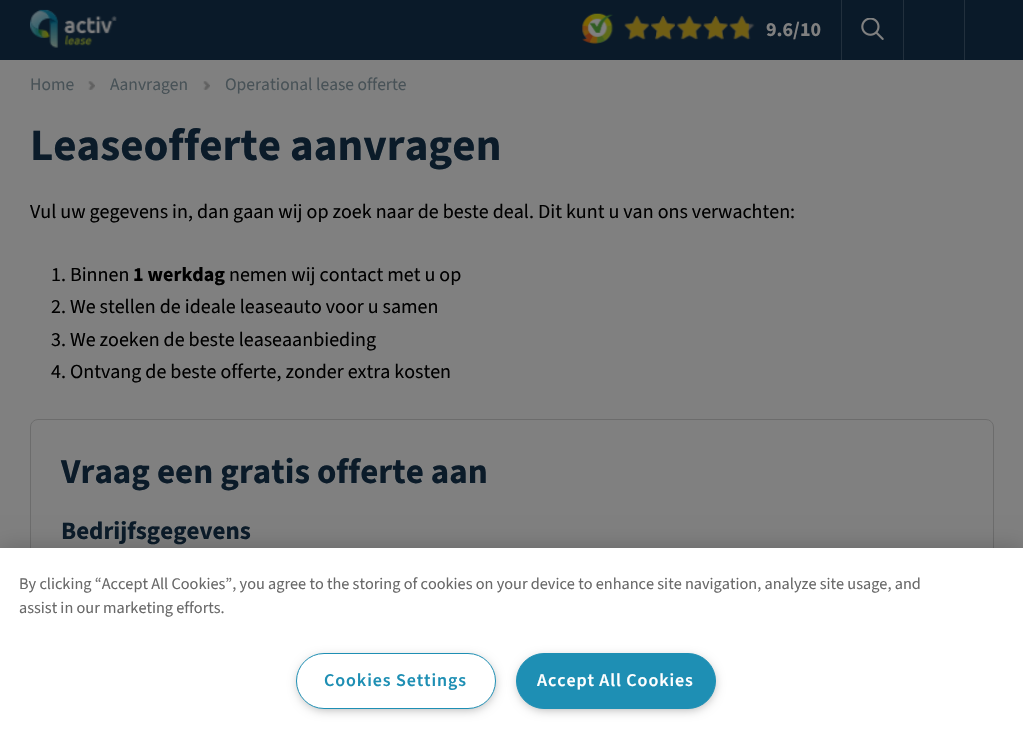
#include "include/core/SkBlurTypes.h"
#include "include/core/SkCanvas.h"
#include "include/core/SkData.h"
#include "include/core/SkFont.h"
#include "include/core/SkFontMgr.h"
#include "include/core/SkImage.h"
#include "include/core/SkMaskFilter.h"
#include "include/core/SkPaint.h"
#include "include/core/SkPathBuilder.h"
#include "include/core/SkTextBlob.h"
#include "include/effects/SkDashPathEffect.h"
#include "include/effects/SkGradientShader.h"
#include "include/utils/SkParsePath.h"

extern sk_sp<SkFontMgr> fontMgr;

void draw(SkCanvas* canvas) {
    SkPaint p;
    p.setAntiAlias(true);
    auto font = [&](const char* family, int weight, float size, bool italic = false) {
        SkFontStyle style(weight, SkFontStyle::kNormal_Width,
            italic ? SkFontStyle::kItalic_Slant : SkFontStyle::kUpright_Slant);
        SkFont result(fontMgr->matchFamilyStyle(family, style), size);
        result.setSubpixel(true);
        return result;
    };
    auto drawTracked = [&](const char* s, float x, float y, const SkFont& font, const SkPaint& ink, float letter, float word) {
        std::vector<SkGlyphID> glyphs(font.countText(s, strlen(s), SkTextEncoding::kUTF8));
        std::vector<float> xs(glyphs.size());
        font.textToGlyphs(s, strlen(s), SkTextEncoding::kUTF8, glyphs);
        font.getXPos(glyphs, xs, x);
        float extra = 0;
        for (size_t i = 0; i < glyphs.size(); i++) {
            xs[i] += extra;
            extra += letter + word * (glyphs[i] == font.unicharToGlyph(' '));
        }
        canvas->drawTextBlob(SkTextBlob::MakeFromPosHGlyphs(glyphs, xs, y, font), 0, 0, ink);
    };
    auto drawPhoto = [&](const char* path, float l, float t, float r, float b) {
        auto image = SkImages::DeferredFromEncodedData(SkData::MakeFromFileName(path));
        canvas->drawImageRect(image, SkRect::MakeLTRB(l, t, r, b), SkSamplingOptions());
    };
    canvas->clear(0xFF808080);
    p.setColor(0xFF0A1A29);
    canvas->drawRect(SkRect::MakeLTRB(0, 0, 1023, 60), p);
    drawPhoto("media/1.png", 30, 9, 117, 48);
    drawPhoto("media/2.png", 582, 13, 614, 44);
    drawPhoto("media/3.png", 624, 16, 649, 40);
    drawPhoto("media/4.png", 624, 15, 650, 40);
    drawPhoto("media/5.png", 651, 16, 675, 40);
    drawPhoto("media/6.png", 651, 16, 675, 40);
    drawPhoto("media/7.png", 677, 15, 702, 39);
    drawPhoto("media/8.png", 676, 16, 702, 40);
    drawPhoto("media/9.png", 703, 16, 728, 40);
    drawPhoto("media/10.png", 703, 16, 728, 40);
    drawPhoto("media/11.png", 729, 15, 755, 39);
    drawPhoto("media/12.png", 729, 16, 749, 40);
    auto font1 = font("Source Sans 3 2", 200, 20);
    p.setColor(0xFF808080);
    canvas->drawString("9.6/10", 766, 36, font1, p);
    p.setColor(0xFF22303D);
    canvas->drawRect(SkRect::MakeLTRB(841, 0, 842, 60), p);
    drawPhoto("media/13.png", 861, 18, 884, 40);
    canvas->drawRect(SkRect::MakeLTRB(903, 0, 904, 60), p);
    canvas->drawRect(SkRect::MakeLTRB(964, 0, 965, 60), p);
    auto font2 = font("Source Sans 3", 200, 17.5f);
    p.setColor(0xFF485257);
    canvas->drawString("Home", 30, 90, font2, p);
    drawPhoto("media/14.png", 88, 81, 95, 90);
    canvas->drawString("Aanvragen", 110, 90, font2, p);
    drawPhoto("media/15.png", 203, 81, 210, 90);
    canvas->drawString("Operational lease offerte", 225, 90, font2, p);
    auto font3 = font("Source Sans 3 2", 200, 45);
    p.setColor(0xFF0B1B29);
    canvas->drawString("Leaseofferte aanvragen", 30, 160, font3, p);
    auto font4 = font("Source Sans 3", 200, 20);
    p.setColor(0xFF000000);
    canvas->drawString("Vul uw gegevens in, dan gaan wij op zoek naar de beste deal. Dit kunt u van ons verwachten:", 30, 218, font4, p);
    canvas->drawString("1. Binnen", 51, 281, font4, p);
    canvas->drawString("1 werkdag", 133, 281, font1, p);
    {
        const struct { const char* s; float x, y; } items[] = {
            {"nemen wij contact met u op", 229, 281},
            {"2. We stellen de ideale leaseauto voor u samen", 51, 313},
            {"3. We zoeken de beste leaseaanbieding", 51, 346},
            {"4. Ontvang de beste offerte, zonder extra kosten", 51, 378},
        };
        for (auto [s, x, y] : items) {
            canvas->drawString(s, x, y, font4, p);
        }
    }
    p.setStyle(SkPaint::kStroke_Style);
    p.setStrokeWidth(1);
    p.setColor(0xFF6C6C6C);
    canvas->drawRoundRect(SkRect::MakeLTRB(30.5f, 419.5f, 993.5f, 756.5f), 7.5f, 7.5f, p);
    auto font5 = font("Source Sans 3 2", 200, 35);
    p.setStyle(SkPaint::kFill_Style);
    p.setColor(0xFF0B1B29);
    canvas->drawString("Vraag een gratis offerte aan", 61, 483, font5, p);
    auto font6 = font("Source Sans 3 2", 200, 25);
    canvas->drawString("Bedrijfsgegevens", 61, 539, font6, p);
    p.setColor(0x33000000);
    p.setMaskFilter(SkMaskFilter::MakeBlur(kNormal_SkBlurStyle, 11));
    canvas->drawRect(SkRect::MakeLTRB(0, 548, 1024, 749), p);
    p.setMaskFilter(nullptr);
    p.setColor(0xFFFFFFFF);
    canvas->drawRect(SkRect::MakeLTRB(0, 548, 1023, 748), p);
    auto font7 = font("Source Sans 3", 200, 16.25f);
    p.setColor(0xFF696969);
    canvas->drawString("By clicking “Accept All Cookies”, you agree to the storing of cookies on your device to enhance site navigation, analyze site usage, and", 19, 589, font7, p);
    canvas->drawString("assist in our marketing efforts.", 19, 613, font7, p);
    p.setColor(0xFF999999);
    p.setMaskFilter(SkMaskFilter::MakeBlur(kNormal_SkBlurStyle, 6));
    canvas->drawRoundRect(SkRect::MakeLTRB(300, 659, 493, 708), 24.5f, 24.5f, p);
    p.setMaskFilter(nullptr);
    p.setColor(0xFFFFFFFF);
    canvas->drawRoundRect(SkRect::MakeLTRB(296.5f, 653.5f, 495.5f, 708.5f), 27.5f, 27.5f, p);
    p.setStyle(SkPaint::kStroke_Style);
    p.setColor(0xFF1E8FB4);
    canvas->drawRoundRect(SkRect::MakeLTRB(296.5f, 653.5f, 495.5f, 708.5f), 27.5f, 27.5f, p);
    auto font8 = font("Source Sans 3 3", 200, 18);
    p.setStyle(SkPaint::kFill_Style);
    drawTracked("Cookies Settings", 324, 686, font8, p, 0.9f, 0);
    p.setColor(0xFF999999);
    p.setMaskFilter(SkMaskFilter::MakeBlur(kNormal_SkBlurStyle, 6));
    canvas->drawRoundRect(SkRect::MakeLTRB(520, 659, 713, 708), 24.5f, 24.5f, p);
    p.setMaskFilter(nullptr);
    p.setColor(0xFF1E8FB4);
    canvas->drawRoundRect(SkRect::MakeLTRB(516.5f, 653.5f, 715.5f, 708.5f), 27.5f, 27.5f, p);
    p.setStyle(SkPaint::kStroke_Style);
    canvas->drawRoundRect(SkRect::MakeLTRB(516.5f, 653.5f, 715.5f, 708.5f), 27.5f, 27.5f, p);
    p.setStyle(SkPaint::kFill_Style);
    p.setColor(0xFFFFFFFF);
    drawTracked("Accept All Cookies", 537, 686, font8, p, 0.9f, 0);
}
